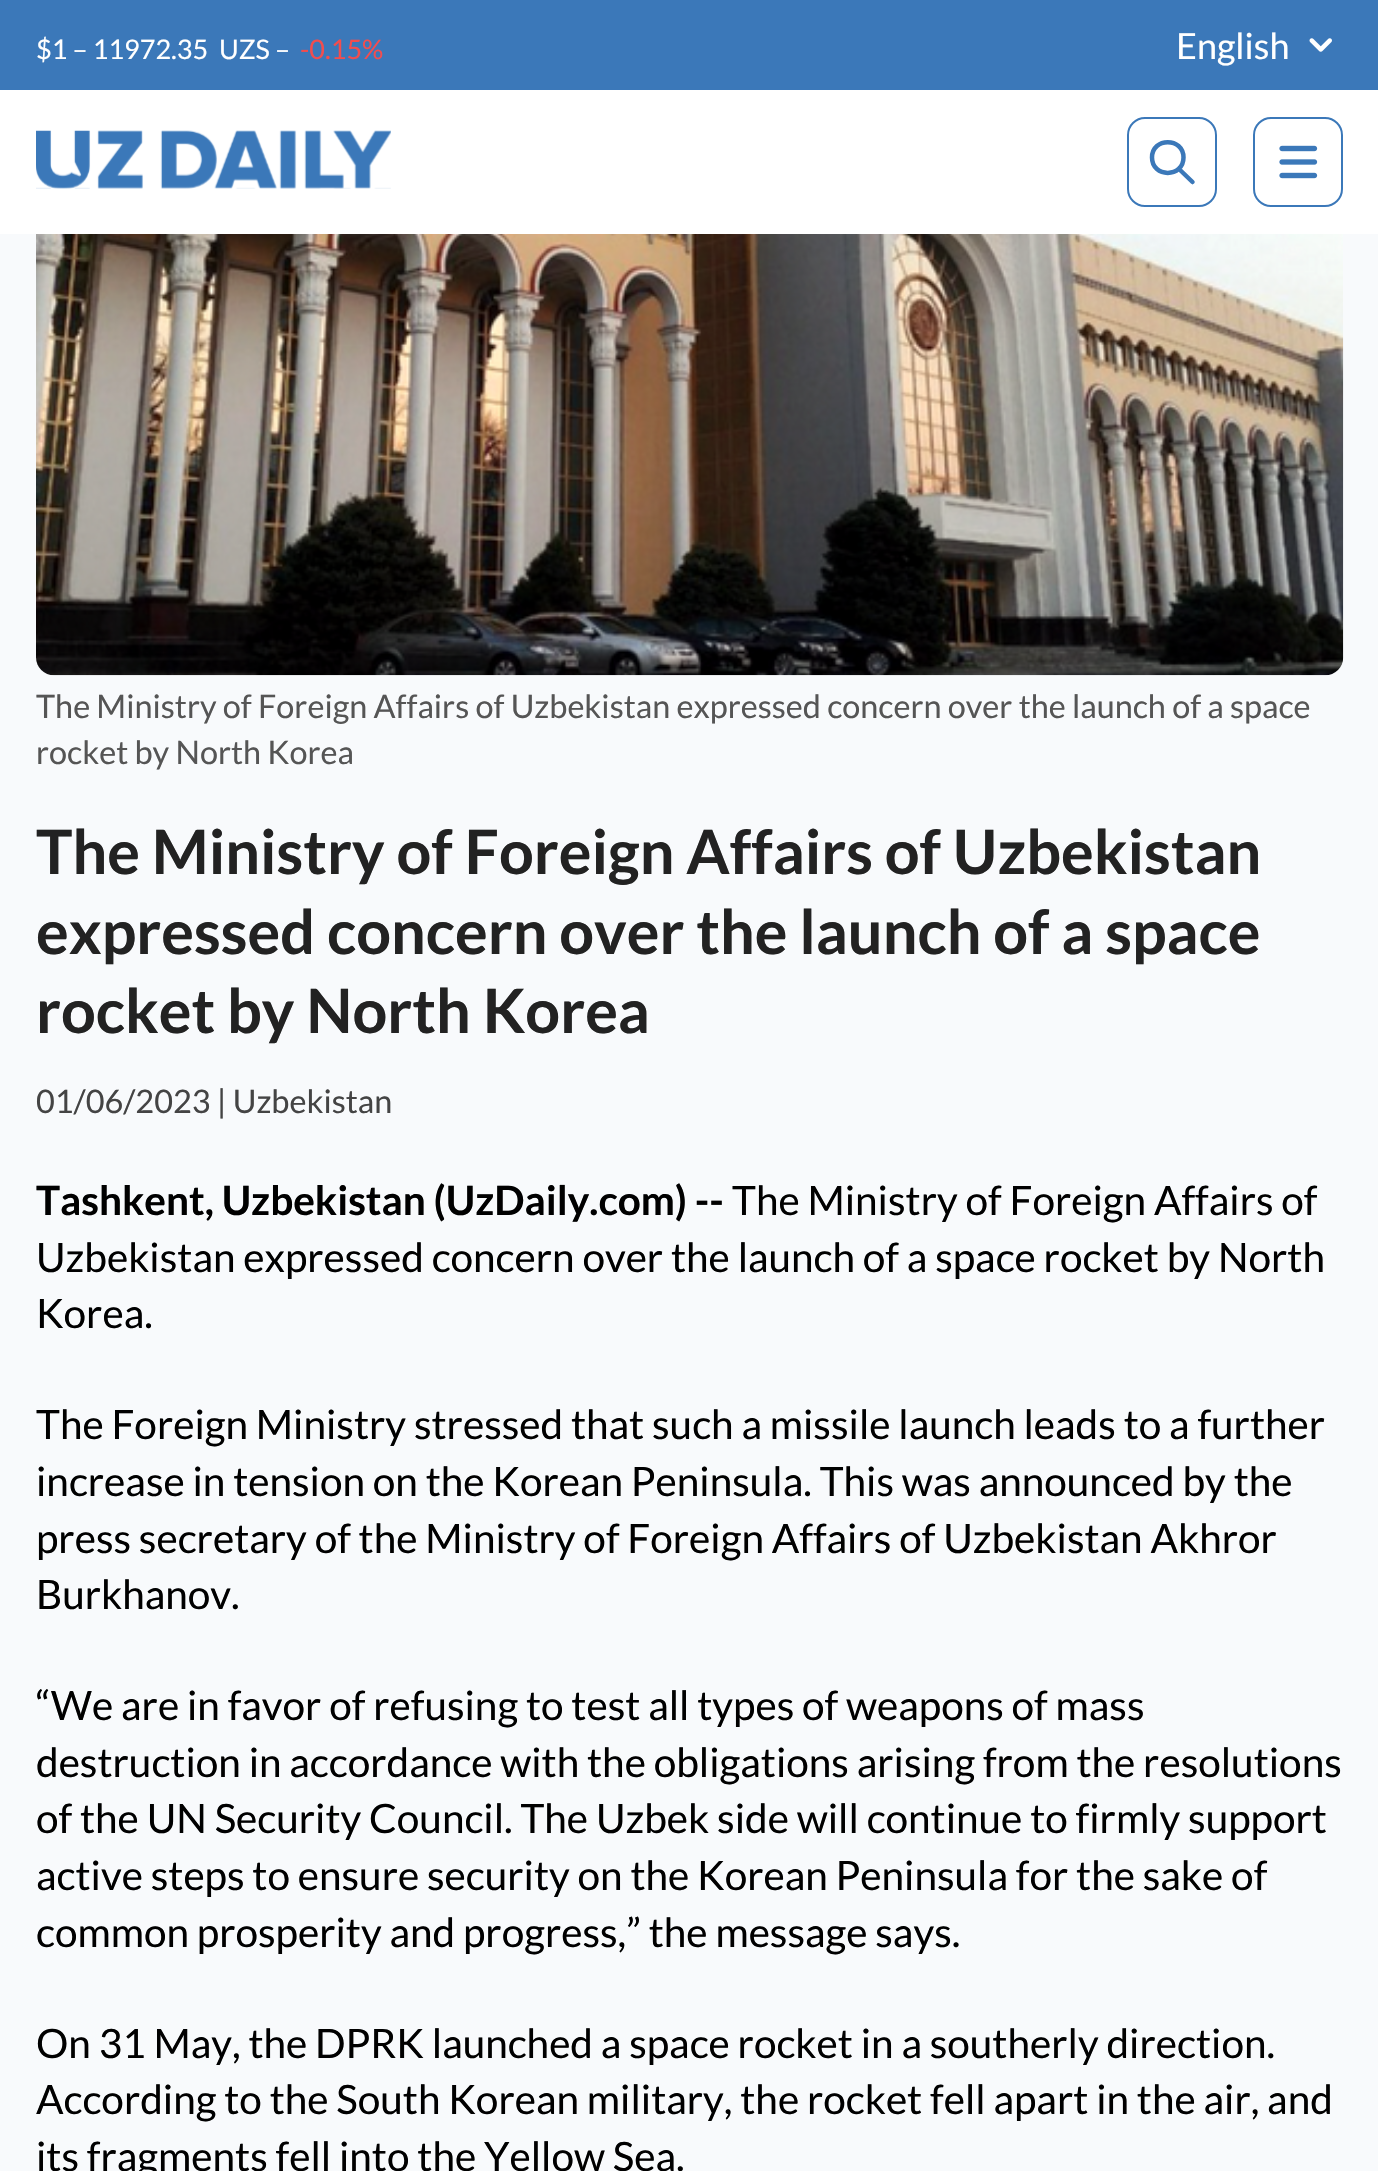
#include "include/core/SkBlurTypes.h"
#include "include/core/SkCanvas.h"
#include "include/core/SkData.h"
#include "include/core/SkFont.h"
#include "include/core/SkFontMgr.h"
#include "include/core/SkImage.h"
#include "include/core/SkMaskFilter.h"
#include "include/core/SkPaint.h"
#include "include/core/SkPathBuilder.h"
#include "include/core/SkTextBlob.h"
#include "include/effects/SkDashPathEffect.h"
#include "include/effects/SkGradientShader.h"
#include "include/utils/SkParsePath.h"

extern sk_sp<SkFontMgr> fontMgr;

void draw(SkCanvas* canvas) {
    SkPaint p;
    p.setAntiAlias(true);
    auto font = [&](const char* family, int weight, float size, bool italic = false) {
        SkFontStyle style(weight, SkFontStyle::kNormal_Width,
            italic ? SkFontStyle::kItalic_Slant : SkFontStyle::kUpright_Slant);
        SkFont result(fontMgr->matchFamilyStyle(family, style), size);
        result.setSubpixel(true);
        return result;
    };
    auto drawPhoto = [&](const char* path, float l, float t, float r, float b) {
        auto image = SkImages::DeferredFromEncodedData(SkData::MakeFromFileName(path));
        canvas->drawImageRect(image, SkRect::MakeLTRB(l, t, r, b), SkSamplingOptions());
    };
    canvas->clear(0xFFF8FAFC);
    p.setColor(0xFFFFFFFF);
    canvas->drawRect(SkRect::MakeLTRB(0, 90, 1378, 234), p);
    p.setColor(0xFF3B78B9);
    canvas->drawRect(SkRect::MakeLTRB(0, 0, 1378, 90), p);
    auto font1 = font("Lato", 400, 27);
    p.setColor(0xFFFFFFFF);
    canvas->drawString("$1 – 11972.35", 36, 59, font1, p);
    canvas->drawString("UZS –", 219, 59, font1, p);
    p.setColor(0xFFF24D4E);
    canvas->drawString("-0.15%", 300, 59, font1, p);
    auto font2 = font("Lato", 400, 36);
    p.setColor(0xFFFFFFFF);
    canvas->drawString("English", 1176, 59, font2, p);
    drawPhoto("media/1.png", 1309, 38, 1332, 52);
    drawPhoto("media/2.png", 36, 130, 391, 189);
    p.setStyle(SkPaint::kStroke_Style);
    p.setStrokeWidth(4.5f);
    p.setStrokeCap(SkPaint::kRound_Cap);
    p.setStrokeJoin(SkPaint::kRound_Join);
    p.setColor(0xFF3B78B9);
    canvas->drawPath(SkPathBuilder().moveTo(1192.5f, 182).lineTo(1179, 169).moveTo(1183.5f, 157.5f).cubicTo(1183.5f, 178, 1152, 178, 1152, 157.5f).cubicTo(1152, 137, 1183.5f, 137, 1183.5f, 157.5f).close().detach(), p);
    p.setStrokeWidth(2);
    p.setStrokeCap(SkPaint::kButt_Cap);
    p.setStrokeJoin(SkPaint::kMiter_Join);
    canvas->drawRoundRect(SkRect::MakeLTRB(1128, 118, 1216, 206), 17, 17, p);
    drawPhoto("media/3.png", 1279, 145, 1318, 179);
    canvas->drawRoundRect(SkRect::MakeLTRB(1254, 118, 1342, 206), 17, 17, p);
    drawPhoto("media/4.png", 36, 234, 1344, 676);
    auto font3 = font("Lato", 400, 32.4f);
    p.setStyle(SkPaint::kFill_Style);
    p.setColor(0xFF555555);
    canvas->drawString("The Ministry of Foreign Affairs of Uzbekistan expressed concern over the launch of a space", 36, 718, font3, p);
    canvas->drawString("rocket by North Korea", 36, 764, font3, p);
    auto font4 = font("Lato", 700, 61.2f);
    p.setColor(0xFF222222);
    {
        const struct { const char* s; float x, y; } items[] = {
            {"The Ministry of Foreign Affairs of Uzbekistan", 36, 874},
            {"expressed concern over the launch of a space", 36, 954},
            {"rocket by North Korea", 36, 1033},
        };
        for (auto [s, x, y] : items) {
            canvas->drawString(s, x, y, font4, p);
        }
    }
    p.setColor(0xFF444444);
    canvas->drawString("01/06/2023 | Uzbekistan", 36, 1113, font3, p);
    auto font5 = font("Lato", 700, 40.5f);
    p.setColor(0xFF000000);
    canvas->drawString("Tashkent, Uzbekistan (UzDaily.com) --", 36, 1215, font5, p);
    auto font6 = font("Lato", 400, 40.5f);
    {
        const struct { const char* s; float x, y; } items[] = {
            {"The Ministry of Foreign Affairs of", 732, 1215},
            {"Uzbekistan expressed concern over the launch of a space rocket by North", 36, 1272},
            {"Korea.", 36, 1328},
            {"The Foreign Ministry stressed that such a missile launch leads to a further", 36, 1439},
            {"increase in tension on the Korean Peninsula. This was announced by the", 36, 1496},
            {"press secretary of the Ministry of Foreign Affairs of Uzbekistan Akhror", 36, 1553},
            {"Burkhanov.", 36, 1609},
            {"“We are in favor of refusing to test all types of weapons of mass", 36, 1720},
            {"destruction in accordance with the obligations arising from the resolutions", 36, 1777},
            {"of the UN Security Council. The Uzbek side will continue to firmly support", 36, 1833},
            {"active steps to ensure security on the Korean Peninsula for the sake of", 36, 1890},
            {"common prosperity and progress,” the message says.", 36, 1947},
            {"On 31 May, the DPRK launched a space rocket in a southerly direction.", 36, 2058},
            {"According to the South Korean military, the rocket fell apart in the air, and", 36, 2114},
            {"its fragments fell into the Yellow Sea.", 36, 2171},
        };
        for (auto [s, x, y] : items) {
            canvas->drawString(s, x, y, font6, p);
        }
    }
}
